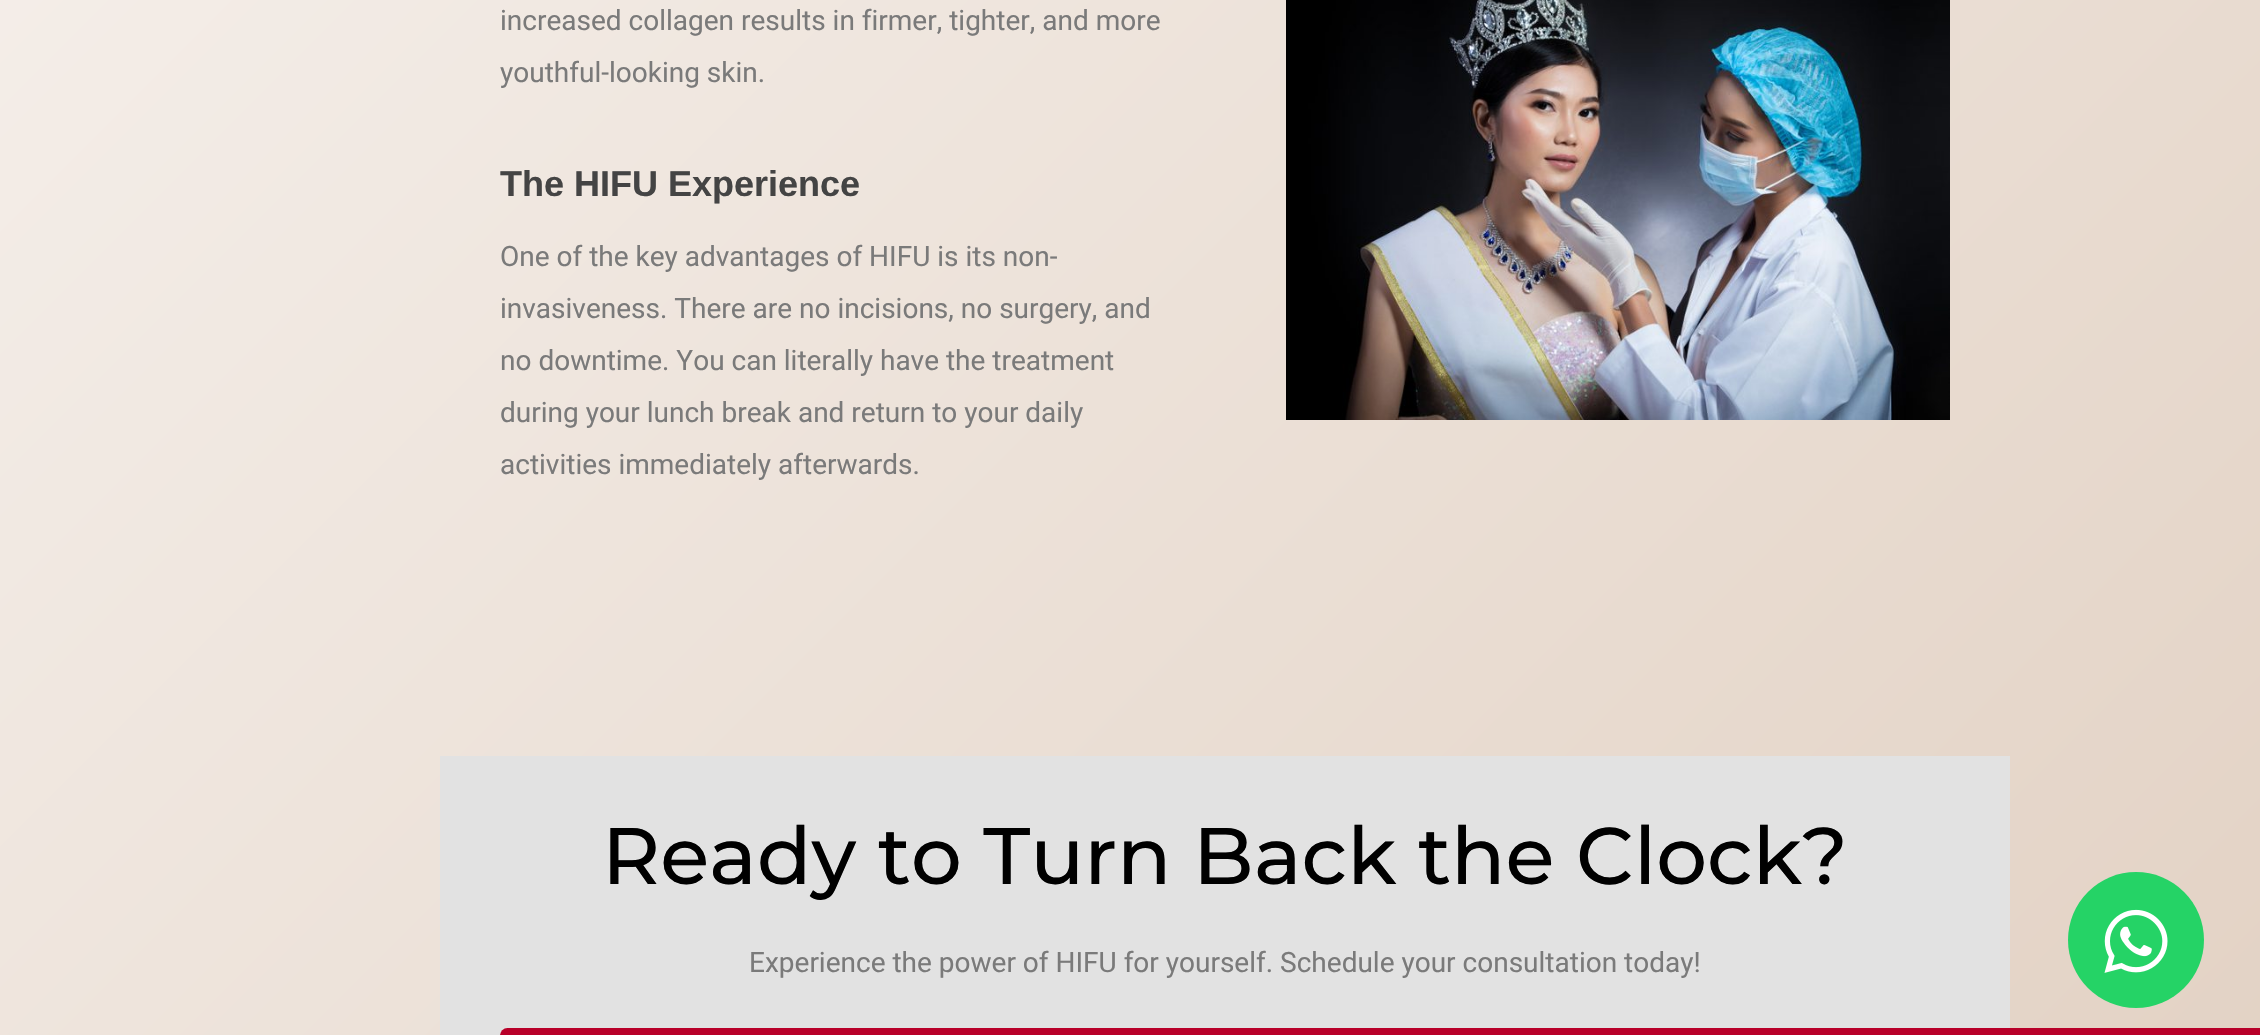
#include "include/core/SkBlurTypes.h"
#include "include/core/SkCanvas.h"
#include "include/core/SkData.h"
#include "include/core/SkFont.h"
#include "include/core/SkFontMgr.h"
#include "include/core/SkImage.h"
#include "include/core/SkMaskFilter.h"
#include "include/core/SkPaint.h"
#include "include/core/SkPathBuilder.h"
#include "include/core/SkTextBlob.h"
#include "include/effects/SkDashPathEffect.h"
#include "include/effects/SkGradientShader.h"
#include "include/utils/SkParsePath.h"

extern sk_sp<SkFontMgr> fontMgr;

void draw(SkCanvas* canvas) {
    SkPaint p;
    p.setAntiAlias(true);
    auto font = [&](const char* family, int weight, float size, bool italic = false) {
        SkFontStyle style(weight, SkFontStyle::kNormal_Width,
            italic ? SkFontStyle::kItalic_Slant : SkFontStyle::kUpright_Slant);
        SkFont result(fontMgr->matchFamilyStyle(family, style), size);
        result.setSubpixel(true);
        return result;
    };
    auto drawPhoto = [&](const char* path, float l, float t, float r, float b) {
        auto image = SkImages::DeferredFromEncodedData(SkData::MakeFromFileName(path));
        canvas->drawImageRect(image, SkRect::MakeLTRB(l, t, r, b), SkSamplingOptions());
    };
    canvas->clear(0xFFFFFFFF);
    {
        const SkColor colors[] = {0xFFFDFCFB, 0xFFE2D1C3};
        const float stops[] = {0, 1};
        const SkPoint ends[] = {{-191, -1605}, {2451, 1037}};
        p.setShader(SkGradientShader::MakeLinear(ends, colors, stops, 2, SkTileMode::kClamp));
        p.setAlpha(255);
    }
    canvas->drawRect(SkRect::MakeLTRB(0, 0, 2260, 1035), p);
    auto font1 = font("Roboto", 400, 28);
    p.setShader(nullptr);
    p.setColor(0xFF7A7A7A);
    canvas->drawString("increased collagen results in firmer, tighter, and more", 500, 30, font1, p);
    canvas->drawString("youthful-looking skin.", 500, 82, font1, p);
    auto font2 = font("Liberation Sans", 700, 36);
    p.setColor(0xFF444444);
    canvas->drawString("The HIFU Experience", 500, 196, font2, p);
    p.setColor(0xFF7A7A7A);
    {
        const struct { const char* s; float x, y; } items[] = {
            {"One of the key advantages of HIFU is its non-", 500, 266},
            {"invasiveness. There are no incisions, no surgery, and", 500, 318},
            {"no downtime. You can literally have the treatment", 500, 370},
            {"during your lunch break and return to your daily", 500, 422},
            {"activities immediately afterwards.", 500, 474},
        };
        for (auto [s, x, y] : items) {
            canvas->drawString(s, x, y, font1, p);
        }
    }
    drawPhoto("media/1.png", 1286, 0, 1950, 420);
    p.setColor(0xFFE2E2E2);
    canvas->drawRect(SkRect::MakeLTRB(440, 756, 2010, 1035), p);
    auto font3 = font("Montserrat", 500, 80);
    p.setColor(0xFF000000);
    canvas->drawString("Ready to Turn Back the Clock?", 602, 884, font3, p);
    p.setColor(0xFF7A7A7A);
    canvas->drawString("Experience the power of HIFU for yourself. Schedule your consultation today!", 749, 972, font1, p);
    p.setColor(0xFFB80029);
    canvas->drawRoundRect(SkRect::MakeLTRB(500, 1028, 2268, 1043), 8, 8, p);
    p.setColor(0xFF25D366);
    canvas->drawCircle(2136, 940, 68, p);
    drawPhoto("media/2.png", 2104, 909, 2168, 973);
}
